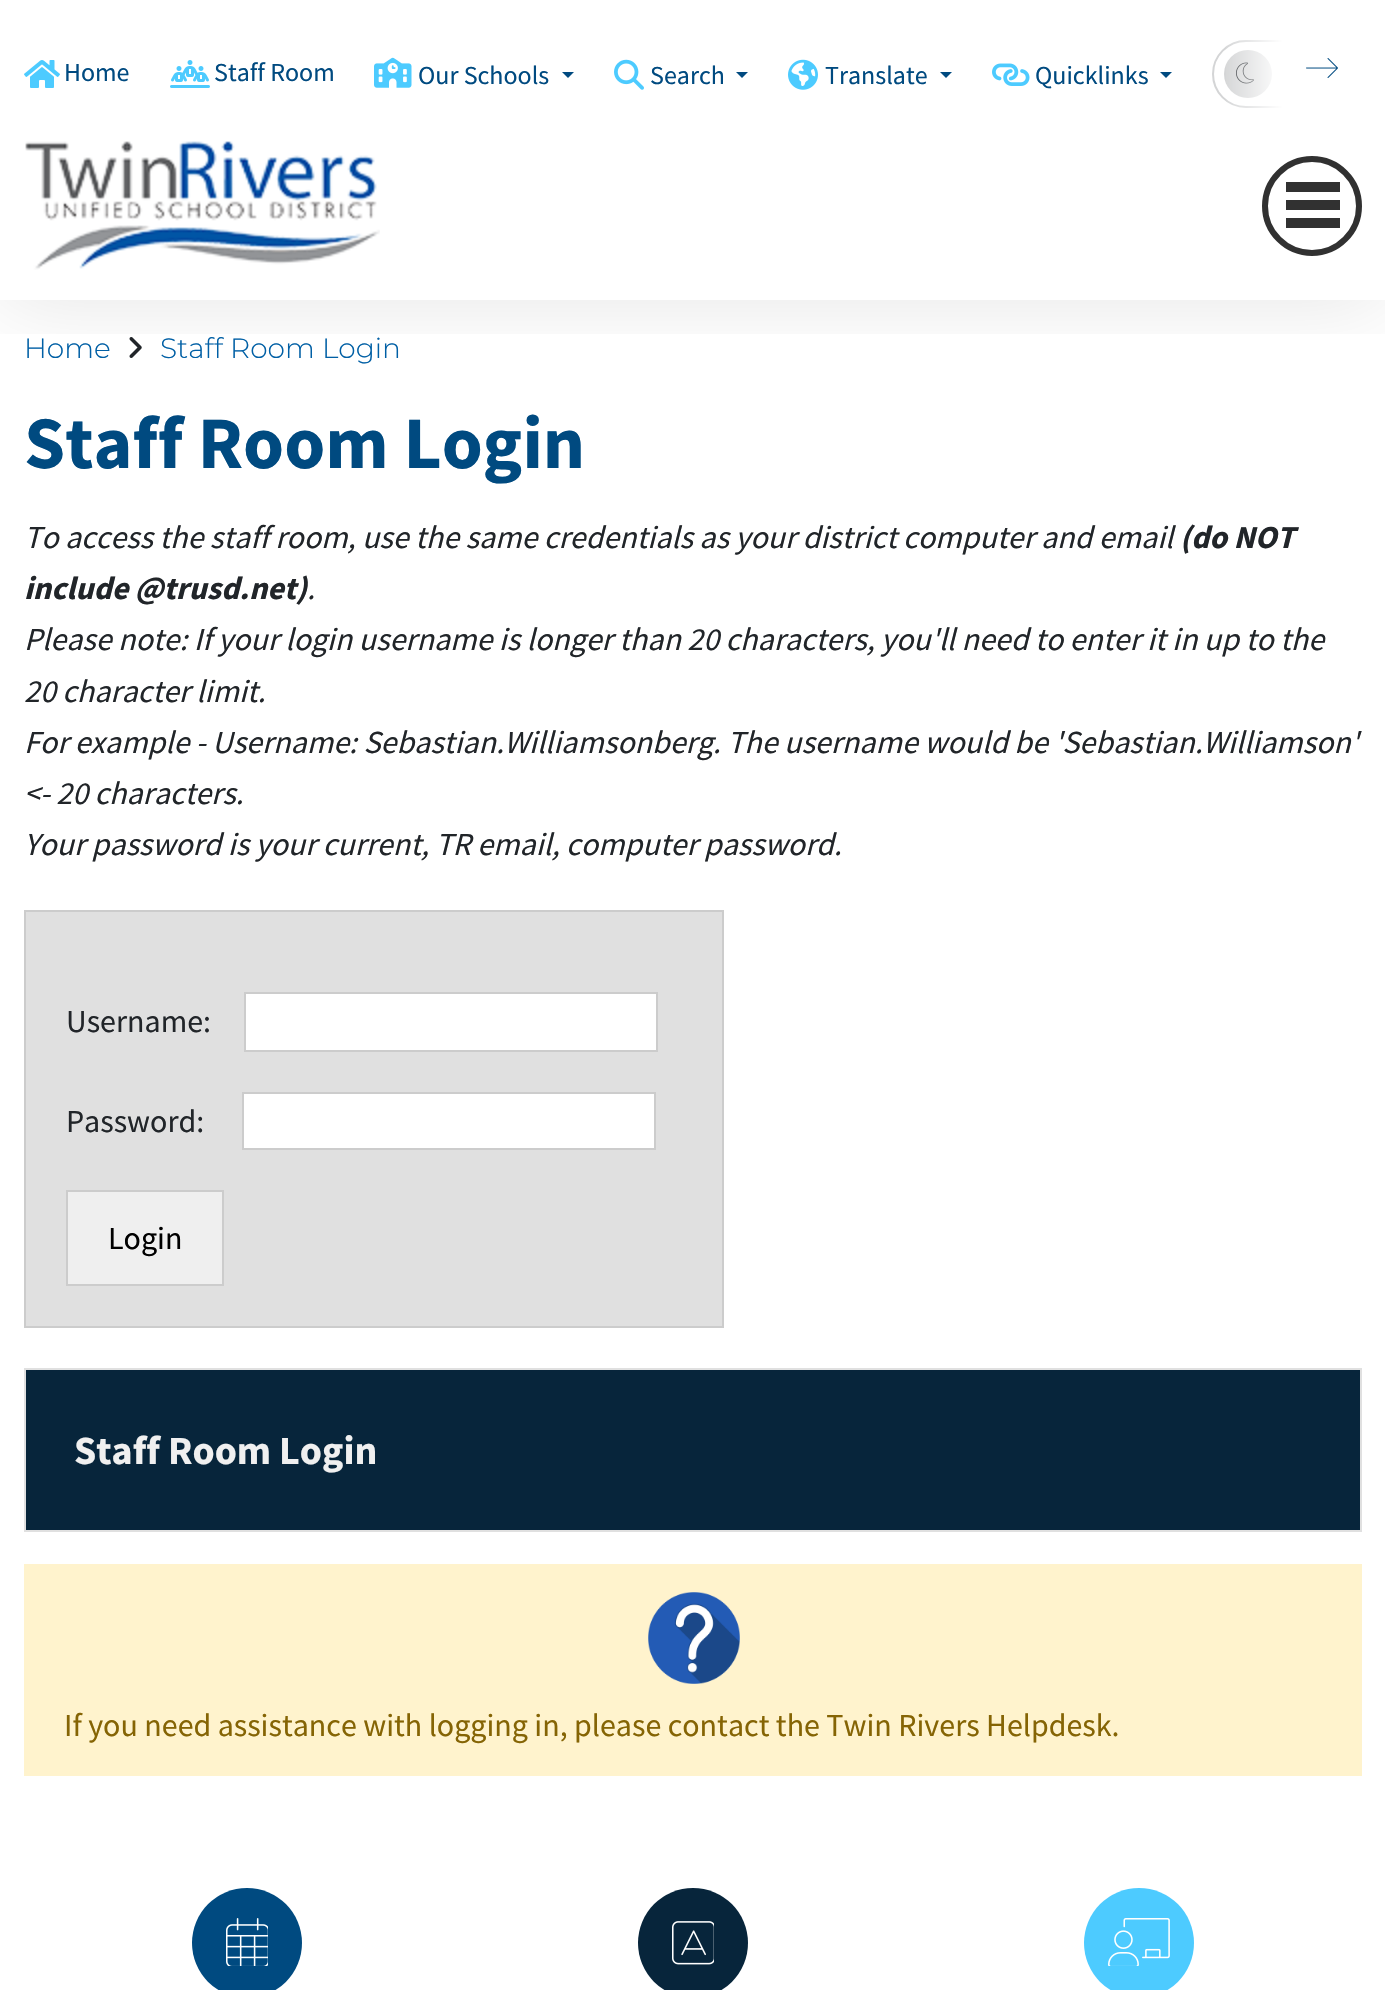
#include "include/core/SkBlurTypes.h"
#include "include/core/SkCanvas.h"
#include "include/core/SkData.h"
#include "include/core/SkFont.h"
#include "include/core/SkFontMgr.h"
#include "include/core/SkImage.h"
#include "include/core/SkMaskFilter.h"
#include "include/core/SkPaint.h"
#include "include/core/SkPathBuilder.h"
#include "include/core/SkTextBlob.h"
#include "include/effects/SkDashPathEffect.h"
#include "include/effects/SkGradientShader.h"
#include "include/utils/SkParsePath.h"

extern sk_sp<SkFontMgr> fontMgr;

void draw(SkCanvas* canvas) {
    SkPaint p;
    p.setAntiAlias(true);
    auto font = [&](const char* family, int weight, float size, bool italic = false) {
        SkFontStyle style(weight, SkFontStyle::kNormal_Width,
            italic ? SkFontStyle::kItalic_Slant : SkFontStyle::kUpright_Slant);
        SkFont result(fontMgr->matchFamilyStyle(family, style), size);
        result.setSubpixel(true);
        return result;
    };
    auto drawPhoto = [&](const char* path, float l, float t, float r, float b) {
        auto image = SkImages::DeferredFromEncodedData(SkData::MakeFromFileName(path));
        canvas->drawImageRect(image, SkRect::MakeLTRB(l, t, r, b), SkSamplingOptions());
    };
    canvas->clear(0xFFFFFFFF);
    drawPhoto("media/10.png", 129, 337, 142, 358);
    canvas->save();
    canvas->clipRect(SkRect::MakeLTRB(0, 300, 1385, 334));
    p.setColor(0x1A000000);
    p.setMaskFilter(SkMaskFilter::MakeBlur(kNormal_SkBlurStyle, 40));
    canvas->drawRect(SkRect::MakeLTRB(0, 0, 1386, 300), p);
    p.setMaskFilter(nullptr);
    canvas->restore();
    drawPhoto("media/1.png", 24, 60, 60, 88);
    auto font1 = font("Source Sans Pro", 400, 26);
    p.setColor(0xFF004A80);
    canvas->drawString("Home", 64, 81, font1, p);
    drawPhoto("media/2.png", 170, 60, 210, 88);
    canvas->drawString("Staff Room", 214, 81, font1, p);
    drawPhoto("media/3.png", 374, 57, 412, 88);
    canvas->drawString("Our Schools", 418, 84, font1, p);
    canvas->drawPath(SkPathBuilder().moveTo(562, 72).lineTo(574, 72).lineTo(568, 78).close().detach(), p);
    drawPhoto("media/4.png", 614, 59, 644, 90);
    canvas->drawString("Search", 650, 84, font1, p);
    canvas->drawPath(SkPathBuilder().moveTo(736, 72).lineTo(748, 72).lineTo(742, 78).close().detach(), p);
    drawPhoto("media/5.png", 788, 59, 818, 90);
    canvas->drawString("Translate", 825, 84, font1, p);
    canvas->drawPath(SkPathBuilder().moveTo(940, 72).lineTo(952, 72).lineTo(946, 78).close().detach(), p);
    drawPhoto("media/6.png", 992, 63, 1030, 86);
    canvas->drawString("Quicklinks", 1035, 84, font1, p);
    canvas->drawPath(SkPathBuilder().moveTo(1160, 72).lineTo(1172, 72).lineTo(1166, 78).close().detach(), p);
    canvas->save();
    canvas->clipRect(SkRect::MakeLTRB(24, 40, 1362, 108));
    p.setStyle(SkPaint::kStroke_Style);
    p.setStrokeWidth(2);
    p.setColor(0xFFD4D5D6);
    canvas->drawRoundRect(SkRect::MakeLTRB(1213, 41, 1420, 107), 33, 33, p);
    canvas->restore();
    p.setStyle(SkPaint::kFill_Style);
    canvas->drawCircle(1248, 74, 24, p);
    drawPhoto("media/7.png", 1236, 62, 1254, 84);
    {
        const SkColor colors[] = {0x00FFFFFF, 0xFFFFFFFF};
        const float stops[] = {0, 0.44f};
        const SkPoint ends[] = {{1222, 68}, {1362, 68}};
        p.setShader(SkGradientShader::MakeLinear(ends, colors, stops, 2, SkTileMode::kClamp));
        p.setAlpha(255);
    }
    canvas->drawRect(SkRect::MakeLTRB(1226, 40, 1362, 108), p);
    drawPhoto("media/8.png", 1306, 58, 1338, 78);
    drawPhoto("media/9.png", 25, 141, 380, 270);
    p.setStyle(SkPaint::kStroke_Style);
    p.setStrokeWidth(6);
    p.setShader(nullptr);
    p.setColor(0xFF313131);
    canvas->drawCircle(1312, 206, 47, p);
    p.setStyle(SkPaint::kFill_Style);
    {
        const struct { float l, t, r, b; SkColor color; } items[] = {
            {1286, 182, 1340, 192, 0xFF313131},
            {1286, 200, 1340, 210, 0xFF313131},
            {1286, 218, 1340, 228, 0xFF313131},
        };
        for (auto [l, t, r, b, color] : items) {
            p.setColor(color);
            canvas->drawRect(SkRect::MakeLTRB(l, t, r, b), p);
        }
    }
    auto font2 = font("Montserrat", 300, 28);
    p.setColor(0xFF005FA5);
    canvas->drawString("Home", 24, 358, font2, p);
    canvas->drawString("Staff Room Login", 160, 358, font2, p);
    auto font3 = font("Source Sans Pro", 700, 74);
    p.setColor(0xFF004A80);
    canvas->drawString("Staff Room Login", 24, 468, font3, p);
    auto font4 = font("Source Sans Pro", 400, 32, true);
    p.setColor(0xFF212529);
    canvas->drawString("To access the staff room, use the same credentials as your district computer and email", 24, 548, font4, p);
    auto font5 = font("Source Sans Pro", 700, 32, true);
    canvas->drawString("(do NOT", 1180, 548, font5, p);
    canvas->drawString("include @trusd.net)", 24, 599, font5, p);
    {
        const struct { const char* s; float x, y; } items[] = {
            {".", 307, 599},
            {"Please note: If your login username is longer than 20 characters, you'll need to enter it in up to the", 24, 650},
            {"20 character limit.", 24, 702},
            {"For example - Username: Sebastian.Williamsonberg. The username would be 'Sebastian.Williamson'", 24, 753},
            {"<- 20 characters.", 24, 804},
            {"Your password is your current, TR email, computer password.", 24, 855},
        };
        for (auto [s, x, y] : items) {
            canvas->drawString(s, x, y, font4, p);
        }
    }
    p.setColor(0xFFE0E0E0);
    canvas->drawRect(SkRect::MakeLTRB(25, 911, 723, 1327), p);
    p.setStyle(SkPaint::kStroke_Style);
    p.setStrokeWidth(2);
    p.setColor(0xFFCCCCCC);
    canvas->drawRect(SkRect::MakeLTRB(25, 911, 723, 1327), p);
    auto font6 = font("Source Sans Pro", 400, 32);
    p.setStyle(SkPaint::kFill_Style);
    p.setColor(0xFF212529);
    canvas->drawString("Username:", 66, 1032, font6, p);
    p.setColor(0xFFFFFFFF);
    canvas->drawRect(SkRect::MakeLTRB(245, 993, 657, 1051), p);
    p.setStyle(SkPaint::kStroke_Style);
    p.setColor(0xFFCCCCCC);
    canvas->drawRect(SkRect::MakeLTRB(245, 993, 657, 1051), p);
    p.setStyle(SkPaint::kFill_Style);
    p.setColor(0xFF212529);
    canvas->drawString("Password:", 66, 1132, font6, p);
    p.setColor(0xFFFFFFFF);
    canvas->drawRect(SkRect::MakeLTRB(243, 1093, 655, 1149), p);
    p.setStyle(SkPaint::kStroke_Style);
    p.setColor(0xFFCCCCCC);
    canvas->drawRect(SkRect::MakeLTRB(243, 1093, 655, 1149), p);
    p.setStyle(SkPaint::kFill_Style);
    p.setColor(0xFFEFEFEF);
    canvas->drawRect(SkRect::MakeLTRB(67, 1191, 223, 1285), p);
    p.setStyle(SkPaint::kStroke_Style);
    p.setColor(0xFFCCCCCC);
    canvas->drawRect(SkRect::MakeLTRB(67, 1191, 223, 1285), p);
    p.setStyle(SkPaint::kFill_Style);
    p.setColor(0xFF000000);
    canvas->drawString("Login", 108, 1249, font6, p);
    p.setStyle(SkPaint::kStroke_Style);
    p.setColor(0xFFE0E0E0);
    canvas->drawRect(SkRect::MakeLTRB(25, 1369, 1361, 1531), p);
    p.setStyle(SkPaint::kFill_Style);
    p.setColor(0xFF07253B);
    canvas->drawRect(SkRect::MakeLTRB(26, 1370, 1360, 1530), p);
    auto font7 = font("Source Sans Pro", 700, 40);
    p.setColor(0xFFF0F0F0);
    canvas->drawString("Staff Room Login", 74, 1464, font7, p);
    p.setColor(0xFFFFF3CD);
    canvas->drawRect(SkRect::MakeLTRB(24, 1564, 1362, 1776), p);
    drawPhoto("media/11.png", 648, 1592, 740, 1684);
    p.setColor(0xFF856404);
    canvas->drawString("If you need assistance with logging in, please contact the Twin Rivers Helpdesk.", 64, 1736, font6, p);
    p.setColor(0xFF004A80);
    canvas->drawCircle(247, 1943, 55, p);
    drawPhoto("media/12.png", 226, 1918, 268, 1966);
    p.setColor(0xFF07253B);
    canvas->drawCircle(693, 1943, 55, p);
    drawPhoto("media/13.png", 672, 1921, 714, 1965);
    p.setColor(0xFF4DCBFF);
    canvas->drawCircle(1139, 1943, 55, p);
    drawPhoto("media/14.png", 1108, 1918, 1170, 1966);
}
